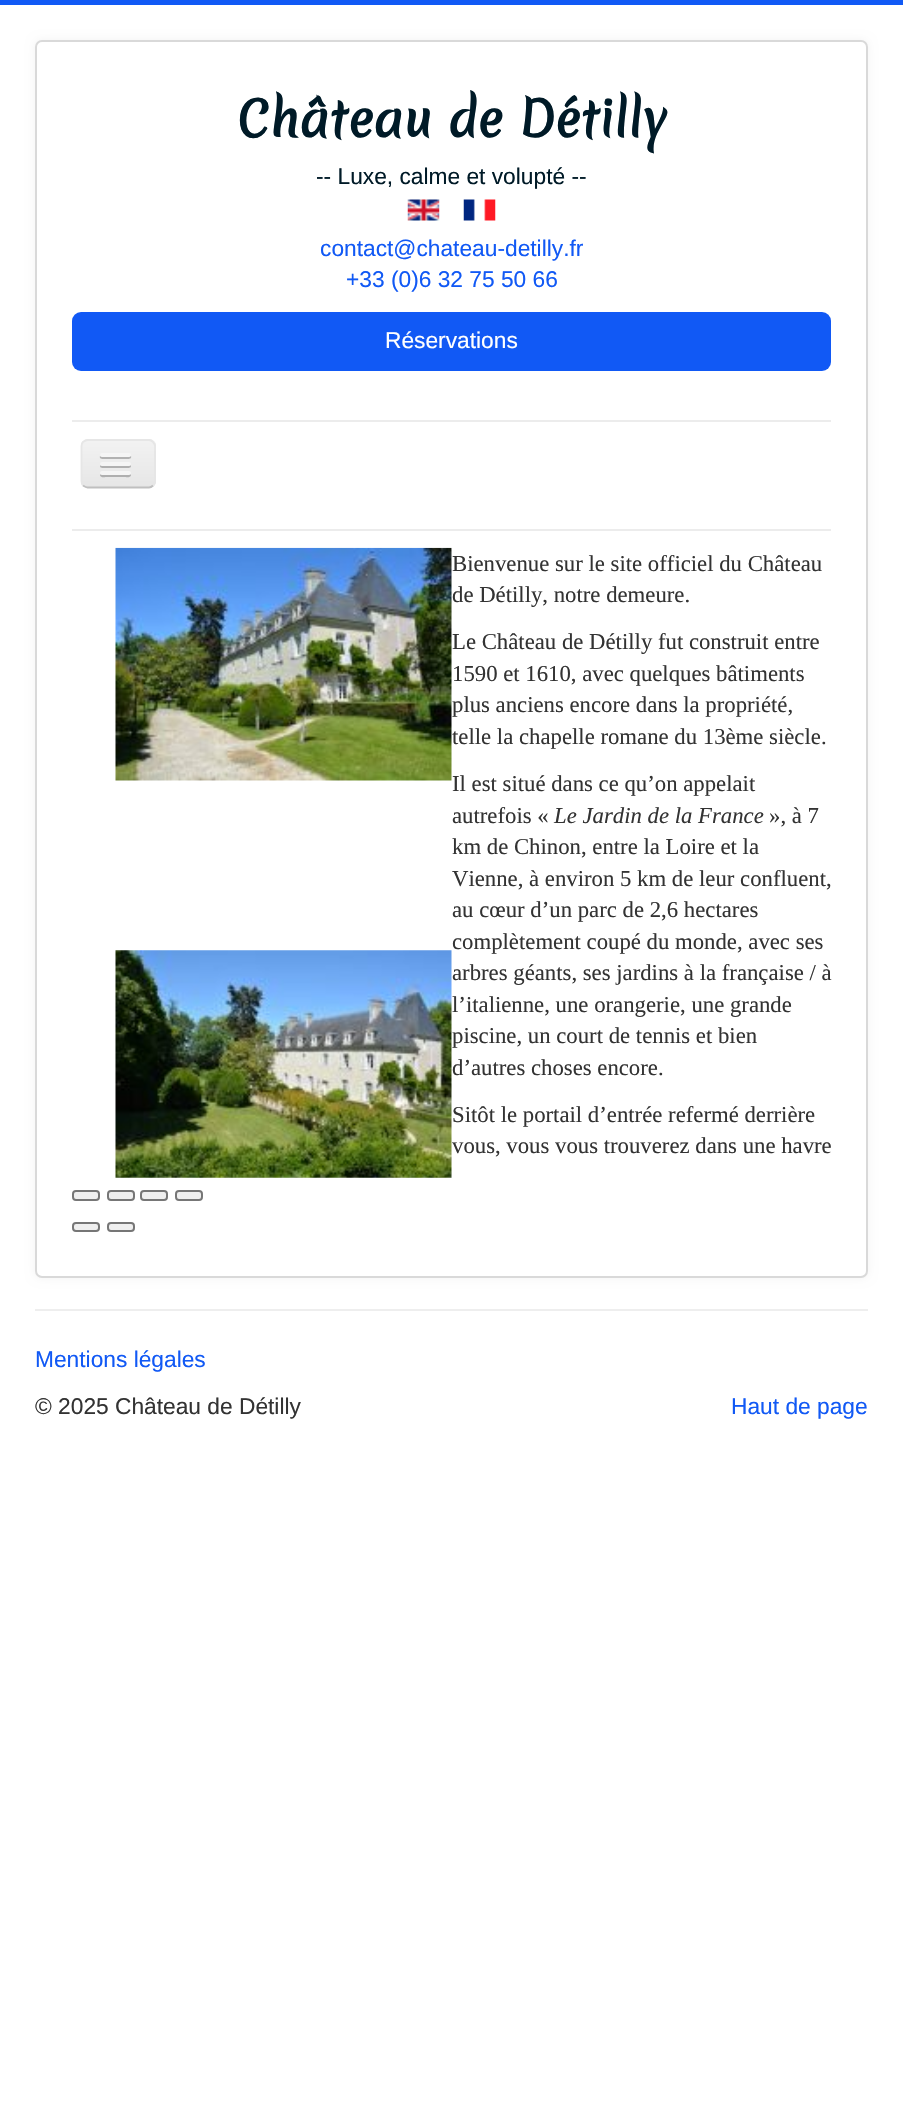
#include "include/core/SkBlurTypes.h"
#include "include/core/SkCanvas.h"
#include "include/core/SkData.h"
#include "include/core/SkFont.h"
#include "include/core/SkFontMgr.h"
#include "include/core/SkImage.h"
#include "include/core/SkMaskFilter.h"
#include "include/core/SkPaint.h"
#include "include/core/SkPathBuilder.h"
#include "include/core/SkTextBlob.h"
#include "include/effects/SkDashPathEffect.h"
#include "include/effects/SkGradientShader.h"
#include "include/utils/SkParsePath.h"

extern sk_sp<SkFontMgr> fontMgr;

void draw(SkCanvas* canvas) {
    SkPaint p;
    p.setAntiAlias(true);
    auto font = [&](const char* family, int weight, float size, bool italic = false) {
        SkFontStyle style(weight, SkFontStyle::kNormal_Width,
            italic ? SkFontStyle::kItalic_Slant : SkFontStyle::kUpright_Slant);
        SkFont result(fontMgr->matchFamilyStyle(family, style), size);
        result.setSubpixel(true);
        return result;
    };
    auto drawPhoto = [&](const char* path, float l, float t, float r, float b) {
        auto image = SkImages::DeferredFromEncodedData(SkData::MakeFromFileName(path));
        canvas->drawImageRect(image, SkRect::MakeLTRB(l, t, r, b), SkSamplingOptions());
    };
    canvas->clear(0xFFFFFFFF);
    p.setColor(0xFF1159F5);
    canvas->drawRect(SkRect::MakeLTRB(0, 0, 903, 5), p);
    p.setColor(0x0D000000);
    p.setMaskFilter(SkMaskFilter::MakeBlur(kNormal_SkBlurStyle, 5));
    canvas->drawRoundRect(SkRect::MakeLTRB(35, 40, 868, 1278), 7, 7, p);
    p.setMaskFilter(nullptr);
    p.setColor(0xFFFFFFFF);
    canvas->drawRoundRect(SkRect::MakeLTRB(36, 41, 867, 1277), 6, 6, p);
    p.setStyle(SkPaint::kStroke_Style);
    p.setStrokeWidth(2);
    p.setColor(0xFFD9D9D9);
    canvas->drawRoundRect(SkRect::MakeLTRB(36, 41, 867, 1277), 6, 6, p);
    auto font1 = font("Merienda", 700, 47.5f);
    p.setStyle(SkPaint::kFill_Style);
    p.setColor(0xFF001A27);
    canvas->drawString("Château de Détilly", 237, 137, font1, p);
    auto font2 = font("Liberation Sans", 400, 22.75f);
    canvas->drawString("-- Luxe, calme et volupté --", 316, 184, font2, p);
    drawPhoto("media/1.png", 407, 199, 440, 221);
    drawPhoto("media/2.png", 463, 199, 496, 221);
    p.setColor(0xFF1159F5);
    canvas->drawString("contact@chateau-detilly.fr", 320, 256, font2, p);
    canvas->drawString("+33 (0)6 32 75 50 66", 346, 287, font2, p);
    canvas->drawRoundRect(SkRect::MakeLTRB(72, 312, 831, 371), 9, 9, p);
    p.setColor(0xFFFFFFFF);
    canvas->drawString("Réservations", 385, 348, font2, p);
    p.setColor(0xFFECECEC);
    canvas->drawRect(SkRect::MakeLTRB(72, 420, 831, 422), p);
    canvas->drawRect(SkRect::MakeLTRB(72, 529, 831, 531), p);
    p.setColor(0xFFEDEDED);
    canvas->drawRoundRect(SkRect::MakeLTRB(81, 439, 156, 488), 7, 7, p);
    canvas->save();
    canvas->clipPath(SkPathBuilder().moveTo(88, 439).lineTo(149, 439).cubicTo(153, 439, 156, 442, 156, 446).lineTo(156, 481).cubicTo(156, 485, 153, 488, 149, 488).lineTo(88, 488).cubicTo(84, 488, 81, 485, 81, 481).lineTo(81, 446).cubicTo(81, 442, 84, 439, 88, 439).close().detach(), true);
    {
        const SkColor colors[] = {0xFFF2F2F2, 0xFFE6E6E6};
        const float stops[] = {0, 1};
        const SkPoint ends[] = {{118, 441}, {118, 487}};
        p.setShader(SkGradientShader::MakeLinear(ends, colors, stops, 2, SkTileMode::kClamp));
        p.setAlpha(255);
    }
    canvas->drawRect(SkRect::MakeLTRB(81, 441, 156, 487), p);
    canvas->restore();
    p.setStyle(SkPaint::kStroke_Style);
    p.setStrokeWidth(1.8f);
    p.setShader(nullptr);
    p.setColor(0xFFBFBFBF);
    canvas->drawPath(SkPathBuilder().moveTo(153, 485.5f).cubicTo(152, 486.5f, 150.5f, 487.5f, 149, 487.5f).lineTo(87.5f, 487.5f).cubicTo(86, 487.5f, 84.5f, 486.5f, 83, 485.5f).detach(), p);
    p.setColor(0xFFE6E6E6);
    canvas->drawPath(SkPathBuilder().moveTo(83, 485.5f).cubicTo(82, 484.5f, 81.5f, 483, 81.5f, 481).lineTo(81.5f, 446).cubicTo(81.5f, 444.5f, 82, 443, 83, 442).cubicTo(84.5f, 441, 86, 440, 87.5f, 440).lineTo(149, 440).cubicTo(150.5f, 440, 152, 441, 153, 442).cubicTo(154, 443, 155, 444.5f, 155, 446).lineTo(155, 481).cubicTo(155, 483, 154, 484.5f, 153, 485.5f).detach(), p);
    p.setStyle(SkPaint::kFill_Style);
    p.setColor(0xFFB2B2B2);
    canvas->drawPath(SkPathBuilder().moveTo(100, 456).cubicTo(98.5f, 460, 105.5f, 459, 106.5f, 459).lineTo(124.5f, 459).cubicTo(125.5f, 459, 132.5f, 460, 131, 456).lineTo(129.5f, 456.5f).lineTo(101.5f, 456.5f).close().detach(), p);
    p.setColor(0xFFF5F5F5);
    canvas->drawRoundRect(SkRect::MakeLTRB(100, 453, 131, 457), 2, 2, p);
    p.setColor(0xFFB0B0B0);
    canvas->drawPath(SkPathBuilder().moveTo(100.5f, 465).cubicTo(98, 469, 106, 468, 106.5f, 468).lineTo(124.5f, 468).cubicTo(125, 468, 133, 469, 130.5f, 465).lineTo(129.5f, 465.5f).lineTo(101.5f, 465.5f).close().detach(), p);
    p.setColor(0xFFF5F5F5);
    canvas->drawRoundRect(SkRect::MakeLTRB(100, 462, 131, 466), 2, 2, p);
    p.setColor(0xFFAFAFAF);
    canvas->drawPath(SkPathBuilder().moveTo(100.5f, 474).lineTo(100, 475.5f).cubicTo(100.5f, 478, 105.5f, 477, 106.5f, 477).lineTo(124.5f, 477).cubicTo(125.5f, 477, 130.5f, 478, 131, 475.5f).lineTo(130.5f, 474).cubicTo(129.5f, 474.5f, 101.5f, 474.5f, 100.5f, 474).close().detach(), p);
    p.setColor(0xFFF5F5F5);
    canvas->drawRoundRect(SkRect::MakeLTRB(100, 471, 131, 475), 2, 2, p);
    drawPhoto("media/3.png", 115, 547, 452, 781);
    drawPhoto("media/4.png", 115, 950, 452, 1178);
    auto font3 = font("Liberation Serif", 400, 22.75f);
    p.setColor(0xFF333333);
    {
        const struct { const char* s; float x, y; } items[] = {
            {"Bienvenue sur le site officiel du Château", 452, 571},
            {"de Détilly, notre demeure.", 452, 602},
            {"Le Château de Détilly fut construit entre", 452, 649},
            {"1590 et 1610, avec quelques bâtiments", 452, 681},
            {"plus anciens encore dans la propriété,", 452, 712},
            {"telle la chapelle romane du 13ème siècle.", 452, 744},
            {"Il est situé dans ce qu’on appelait", 452, 791},
            {"autrefois «", 452, 823},
        };
        for (auto [s, x, y] : items) {
            canvas->drawString(s, x, y, font3, p);
        }
    }
    auto font4 = font("Liberation Serif", 400, 22.75f, true);
    canvas->drawString("Le Jardin de la France", 554, 823, font4, p);
    {
        const struct { const char* s; float x, y; } items[] = {
            {"», à 7", 769, 823},
            {"km de Chinon, entre la Loire et la", 452, 854},
            {"Vienne, à environ 5 km de leur confluent,", 452, 886},
            {"au cœur d’un parc de 2,6 hectares", 452, 917},
            {"complètement coupé du monde, avec ses", 452, 949},
            {"arbres géants, ses jardins à la française / à", 452, 980},
            {"l’italienne, une orangerie, une grande", 452, 1012},
            {"piscine, un court de tennis et bien", 452, 1043},
            {"d’autres choses encore.", 452, 1075},
            {"Sitôt le portail d’entrée refermé derrière", 452, 1122},
            {"vous, vous vous trouverez dans une havre", 452, 1153},
        };
        for (auto [s, x, y] : items) {
            canvas->drawString(s, x, y, font3, p);
        }
    }
    p.setColor(0xFFEFEFEF);
    canvas->drawRoundRect(SkRect::MakeLTRB(73, 1191, 99, 1200), 3, 3, p);
    p.setStyle(SkPaint::kStroke_Style);
    p.setStrokeWidth(2);
    p.setColor(0xFF767676);
    canvas->drawRoundRect(SkRect::MakeLTRB(73, 1191, 99, 1200), 3, 3, p);
    p.setStyle(SkPaint::kFill_Style);
    p.setColor(0xFFEFEFEF);
    canvas->drawRoundRect(SkRect::MakeLTRB(108, 1191, 134, 1200), 3, 3, p);
    p.setStyle(SkPaint::kStroke_Style);
    p.setColor(0xFF767676);
    canvas->drawRoundRect(SkRect::MakeLTRB(108, 1191, 134, 1200), 3, 3, p);
    p.setStyle(SkPaint::kFill_Style);
    p.setColor(0xFFEFEFEF);
    canvas->drawRoundRect(SkRect::MakeLTRB(141, 1191, 167, 1200), 3, 3, p);
    p.setStyle(SkPaint::kStroke_Style);
    p.setColor(0xFF767676);
    canvas->drawRoundRect(SkRect::MakeLTRB(141, 1191, 167, 1200), 3, 3, p);
    p.setStyle(SkPaint::kFill_Style);
    p.setColor(0xFFEFEFEF);
    canvas->drawRoundRect(SkRect::MakeLTRB(176, 1191, 202, 1200), 3, 3, p);
    p.setStyle(SkPaint::kStroke_Style);
    p.setColor(0xFF767676);
    canvas->drawRoundRect(SkRect::MakeLTRB(176, 1191, 202, 1200), 3, 3, p);
    p.setStyle(SkPaint::kFill_Style);
    p.setColor(0xFFEFEFEF);
    canvas->drawRoundRect(SkRect::MakeLTRB(73, 1223, 99, 1231), 3, 3, p);
    p.setStyle(SkPaint::kStroke_Style);
    p.setColor(0xFF767676);
    canvas->drawRoundRect(SkRect::MakeLTRB(73, 1223, 99, 1231), 3, 3, p);
    p.setStyle(SkPaint::kFill_Style);
    p.setColor(0xFFEFEFEF);
    canvas->drawRoundRect(SkRect::MakeLTRB(108, 1223, 134, 1231), 3, 3, p);
    p.setStyle(SkPaint::kStroke_Style);
    p.setColor(0xFF767676);
    canvas->drawRoundRect(SkRect::MakeLTRB(108, 1223, 134, 1231), 3, 3, p);
    p.setStyle(SkPaint::kFill_Style);
    p.setColor(0xFFEEEEEE);
    canvas->drawRect(SkRect::MakeLTRB(35, 1309, 868, 1311), p);
    p.setColor(0xFF1159F5);
    canvas->drawString("Mentions légales", 35, 1367, font2, p);
    p.setColor(0xFF333333);
    canvas->drawString("© 2025 Château de Détilly", 35, 1414, font2, p);
    p.setColor(0xFF1159F5);
    canvas->drawString("Haut de page", 731, 1414, font2, p);
}
